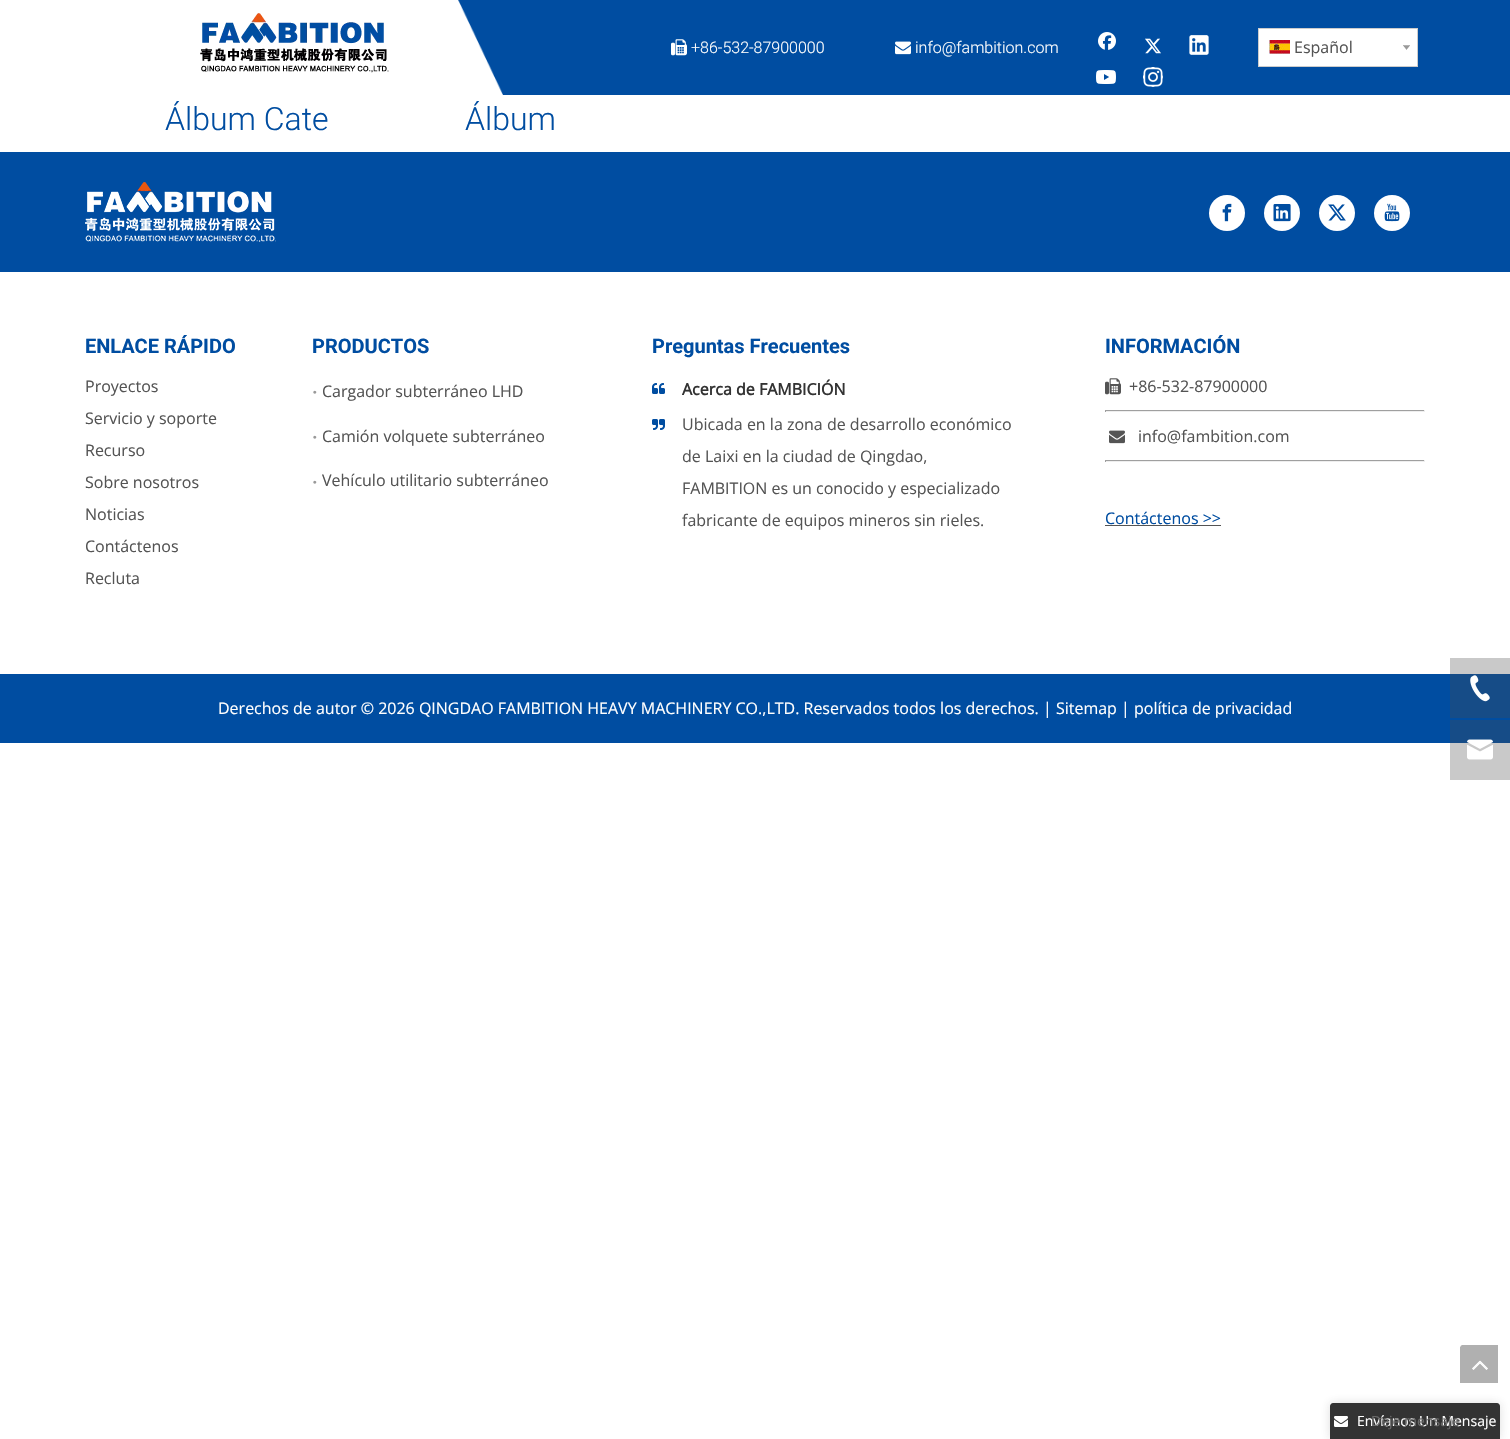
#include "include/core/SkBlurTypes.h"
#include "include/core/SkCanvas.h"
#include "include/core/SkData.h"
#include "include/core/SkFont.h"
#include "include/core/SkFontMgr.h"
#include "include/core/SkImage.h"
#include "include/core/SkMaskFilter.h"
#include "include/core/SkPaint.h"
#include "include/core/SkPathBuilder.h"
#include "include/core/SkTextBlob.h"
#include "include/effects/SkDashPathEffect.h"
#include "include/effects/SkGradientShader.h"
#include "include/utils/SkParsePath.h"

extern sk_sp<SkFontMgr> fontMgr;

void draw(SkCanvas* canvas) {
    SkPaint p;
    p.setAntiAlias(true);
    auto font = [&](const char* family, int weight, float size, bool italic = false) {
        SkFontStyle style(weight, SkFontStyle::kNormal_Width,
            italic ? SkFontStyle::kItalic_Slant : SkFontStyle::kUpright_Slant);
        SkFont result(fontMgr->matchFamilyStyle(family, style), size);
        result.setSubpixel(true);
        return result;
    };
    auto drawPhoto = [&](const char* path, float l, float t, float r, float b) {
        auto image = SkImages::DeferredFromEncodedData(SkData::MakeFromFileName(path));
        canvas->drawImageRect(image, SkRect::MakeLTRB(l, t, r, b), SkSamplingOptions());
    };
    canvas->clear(0xFFFFFFFF);
    {
        const struct { float l, t, r, b; SkColor color; } items[] = {
            {1450, 743, 1510, 780, 0xFFC9C9C9},
            {1450, 658, 1510, 674, 0xFFC9C9C9},
            {458, 0, 1510, 95, 0xFF004DA1},
        };
        for (auto [l, t, r, b, color] : items) {
            p.setColor(color);
            canvas->drawRect(SkRect::MakeLTRB(l, t, r, b), p);
        }
    }
    drawPhoto("media/1.png", 0, 0, 503, 95);
    drawPhoto("media/2.png", 200, 13, 389, 73);
    drawPhoto("media/3.png", 671, 39, 687, 56);
    auto font1 = font("Roboto", 300, 16);
    p.setColor(0xFFFFFFFF);
    canvas->drawString("+86-532-87900000", 691, 53, font1, p);
    drawPhoto("media/4.png", 895, 41, 911, 55);
    canvas->drawString("info@fambition.com", 915, 53, font1, p);
    drawPhoto("media/5.png", 1098, 32, 1116, 50);
    drawPhoto("media/6.png", 1145, 38, 1161, 54);
    drawPhoto("media/7.png", 1189, 35, 1209, 55);
    drawPhoto("media/8.png", 1096, 70, 1116, 84);
    drawPhoto("media/9.png", 1143, 67, 1163, 87);
    canvas->drawRect(SkRect::MakeLTRB(1258.5f, 28.5f, 1417.5f, 66.5f), p);
    p.setStyle(SkPaint::kStroke_Style);
    p.setStrokeWidth(1);
    p.setColor(0xFFCCCCCC);
    canvas->drawRect(SkRect::MakeLTRB(1258.5f, 28.5f, 1417.5f, 66.5f), p);
    drawPhoto("media/10.png", 1269, 40, 1290, 54);
    auto font2 = font("Open Sans", 400, 16);
    p.setStyle(SkPaint::kFill_Style);
    p.setColor(0xFF545454);
    canvas->drawString("Español", 1294, 53, font2, p);
    drawPhoto("media/11.png", 1403, 45, 1410, 50);
    auto font3 = font("Roboto", 300, 32);
    p.setColor(0xFF004DA1);
    canvas->drawString("Álbum Cate", 165, 130, font3, p);
    canvas->drawString("Álbum", 465, 130, font3, p);
    canvas->drawRect(SkRect::MakeLTRB(0, 152, 1510, 272), p);
    drawPhoto("media/12.png", 85, 182, 276, 242);
    p.setColor(0xFFFFFFFF);
    canvas->drawCircle(1227, 213, 18, p);
    drawPhoto("media/13.png", 1222, 203, 1232, 222);
    canvas->drawCircle(1282, 213, 18, p);
    drawPhoto("media/14.png", 1273, 204, 1291, 222);
    canvas->drawCircle(1337, 213, 18, p);
    drawPhoto("media/15.png", 1328, 204, 1346, 221);
    canvas->drawCircle(1392, 213, 18, p);
    drawPhoto("media/16.png", 1384, 203, 1400, 222);
    auto font4 = font("Roboto", 700, 20);
    p.setColor(0xFF004DA1);
    canvas->drawString("ENLACE RÁPIDO", 85, 353, font4, p);
    p.setColor(0xFF545454);
    {
        const struct { const char* s; float x, y; } items[] = {
            {"Proyectos", 85, 392},
            {"Servicio y soporte", 85, 424},
            {"Recurso", 85, 456},
            {"Sobre nosotros", 85, 488},
            {"Noticias", 85, 520},
            {"Contáctenos", 85, 552},
            {"Recluta", 85, 584},
        };
        for (auto [s, x, y] : items) {
            canvas->drawString(s, x, y, font2, p);
        }
    }
    p.setColor(0xFF004DA1);
    canvas->drawString("INFORMACIÓN", 1105, 353, font4, p);
    drawPhoto("media/17.png", 1105, 378, 1121, 395);
    p.setColor(0xFF545454);
    canvas->drawString("+86-532-87900000", 1129, 392, font2, p);
    {
        const struct { float l, t, r, b; SkColor color; } items[] = {
            {1105, 410, 1425, 411, 0xFF9F9F9F},
            {1424, 410, 1425, 412, 0xFFEEEEEE},
            {1105, 411, 1425, 412, 0xFFEEEEEE},
            {1105, 410, 1106, 412, 0xFF9F9F9F},
        };
        for (auto [l, t, r, b, color] : items) {
            p.setColor(color);
            canvas->drawRect(SkRect::MakeLTRB(l, t, r, b), p);
        }
    }
    drawPhoto("media/18.png", 1109, 430, 1125, 444);
    p.setColor(0xFF545454);
    canvas->drawString("info@fambition.com", 1138, 442, font2, p);
    {
        const struct { float l, t, r, b; SkColor color; } items[] = {
            {1105, 460, 1425, 461, 0xFF9F9F9F},
            {1424, 460, 1425, 462, 0xFFEEEEEE},
            {1105, 461, 1425, 462, 0xFFEEEEEE},
            {1105, 460, 1106, 462, 0xFF9F9F9F},
        };
        for (auto [l, t, r, b, color] : items) {
            p.setColor(color);
            canvas->drawRect(SkRect::MakeLTRB(l, t, r, b), p);
        }
    }
    p.setColor(0xFF004DA1);
    canvas->drawString("Contáctenos >>", 1105, 524, font2, p);
    p.setColor(0xFF545454);
    canvas->drawRect(SkRect::MakeLTRB(1105, 525, 1221, 526), p);
    p.setColor(0xFF004DA1);
    canvas->drawString("PRODUCTOS", 312, 353, font4, p);
    drawPhoto("media/19.png", 313, 390, 317, 394);
    p.setColor(0xFF545454);
    canvas->drawString("Cargador subterráneo LHD", 322, 397, font2, p);
    drawPhoto("media/19.png", 313, 435, 317, 439);
    canvas->drawString("Camión volquete subterráneo", 322, 442, font2, p);
    drawPhoto("media/19.png", 313, 480, 317, 484);
    canvas->drawString("Vehículo utilitario subterráneo", 322, 486, font2, p);
    p.setColor(0xFF004DA1);
    canvas->drawRect(SkRect::MakeLTRB(0, 674, 1510, 743), p);
    p.setColor(0xFF164C87);
    canvas->drawRect(SkRect::MakeLTRB(1450, 674, 1510, 718), p);
    drawPhoto("media/20.png", 1470, 675, 1490, 702);
    canvas->drawRect(SkRect::MakeLTRB(1450, 720, 1510, 743), p);
    drawPhoto("media/21.png", 1467, 739, 1493, 760);
    p.setColor(0x2E444444);
    p.setMaskFilter(SkMaskFilter::MakeBlur(kNormal_SkBlurStyle, 5));
    canvas->drawRoundRect(SkRect::MakeLTRB(1330, 1403, 1500, 1439), 3, 3, p);
    p.setMaskFilter(nullptr);
    p.setColor(0xFF333333);
    canvas->drawPath(SkPathBuilder().moveTo(1333, 1403).lineTo(1497, 1403).cubicTo(1498.5f, 1403, 1500, 1404.5f, 1500, 1406).lineTo(1500, 1439).lineTo(1330, 1439).lineTo(1330, 1406).cubicTo(1330, 1404.5f, 1331.5f, 1403, 1333, 1403).close().detach(), p);
    auto font5 = font("Open Sans", 400, 14);
    p.setColor(0xFFFFFFFF);
    canvas->drawString("Envíanos Un Mensaje", 1357, 1426, font5, p);
    drawPhoto("media/22.png", 1334, 1416, 1348, 1427);
    p.setColor(0xFF696969);
    canvas->drawString("Deje mensaje", 1371, 1426, font5, p);
    p.setColor(0xFF004DA1);
    canvas->drawString("Preguntas Frecuentes", 652, 353, font4, p);
    drawPhoto("media/23.png", 652, 383, 665, 394);
    auto font6 = font("Open Sans", 700, 16);
    p.setColor(0xFF333333);
    canvas->drawString("Acerca de FAMBICIÓN", 682, 395, font6, p);
    drawPhoto("media/24.png", 652, 419, 665, 430);
    p.setColor(0xFF545454);
    {
        const struct { const char* s; float x, y; } items[] = {
            {"Ubicada en la zona de desarrollo económico", 682, 430},
            {"de Laixi en la ciudad de Qingdao,", 682, 462},
            {"FAMBITION es un conocido y especializado", 682, 494},
            {"fabricante de equipos mineros sin rieles.", 682, 526},
        };
        for (auto [s, x, y] : items) {
            canvas->drawString(s, x, y, font2, p);
        }
    }
    p.setColor(0xFFFFFFFF);
    canvas->drawString("Derechos de autor © 2026 QINGDAO FAMBITION HEAVY MACHINERY CO.,LTD. Reservados todos los derechos. | Sitemap | política de privacidad", 218, 714, font2, p);
    drawPhoto("media/25.png", 1460, 1345, 1498, 1383);
}
